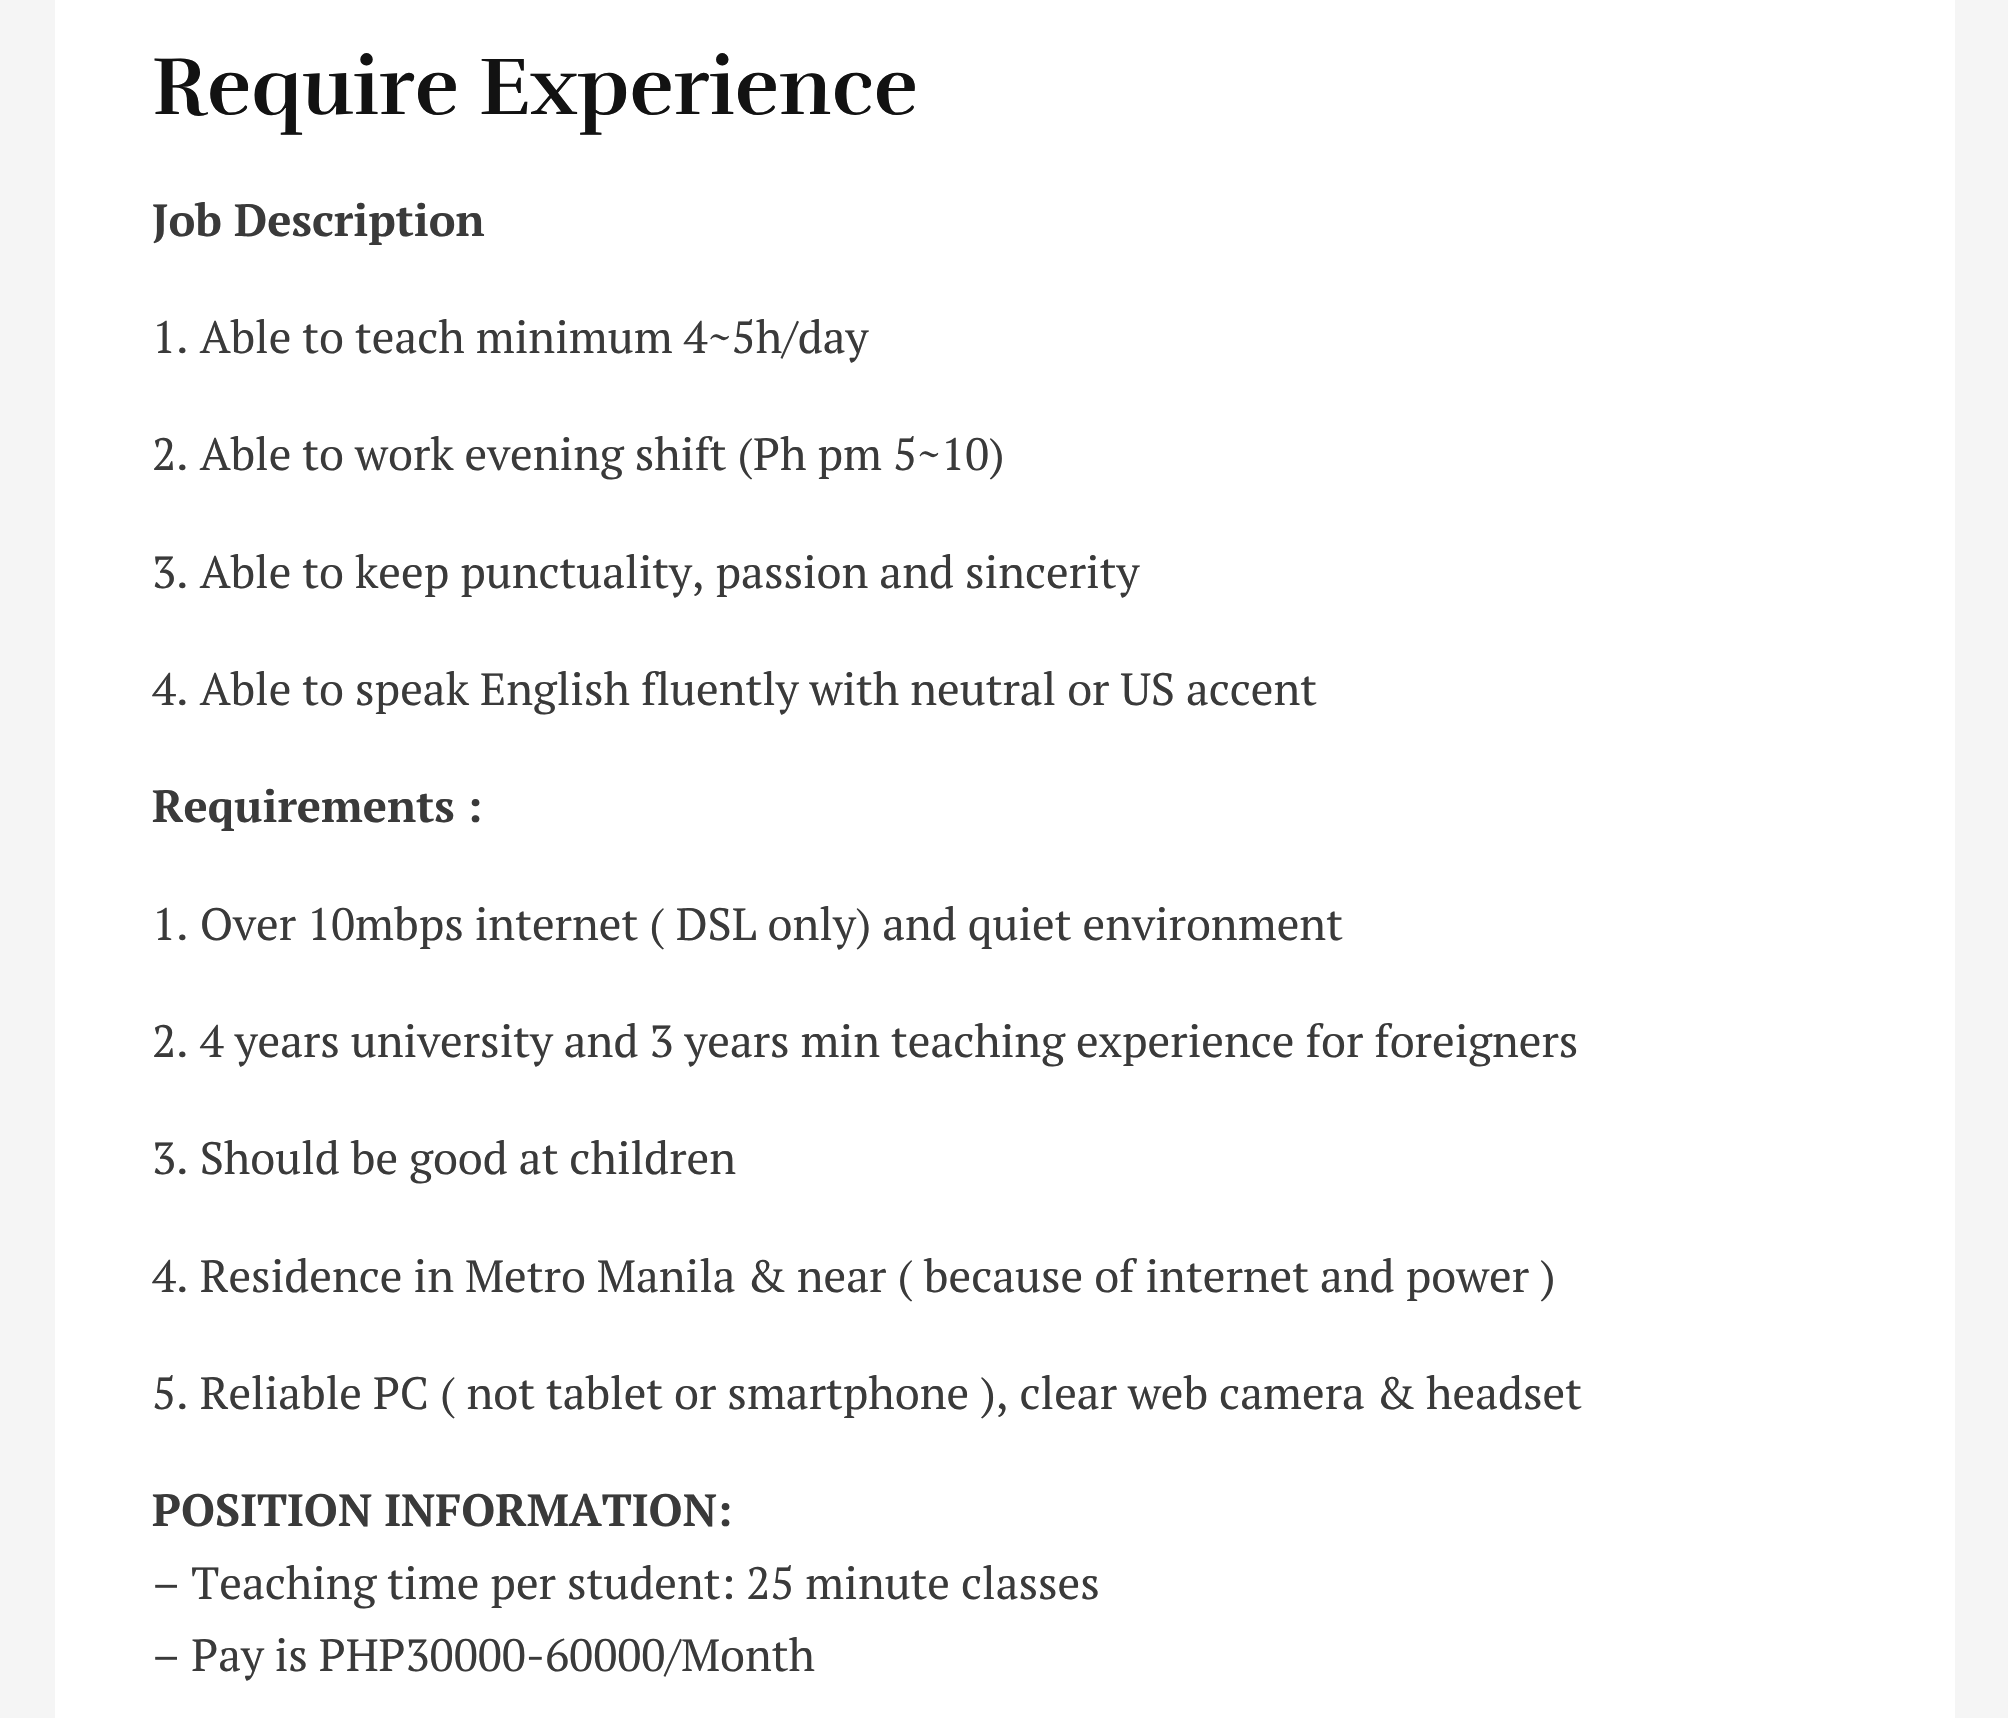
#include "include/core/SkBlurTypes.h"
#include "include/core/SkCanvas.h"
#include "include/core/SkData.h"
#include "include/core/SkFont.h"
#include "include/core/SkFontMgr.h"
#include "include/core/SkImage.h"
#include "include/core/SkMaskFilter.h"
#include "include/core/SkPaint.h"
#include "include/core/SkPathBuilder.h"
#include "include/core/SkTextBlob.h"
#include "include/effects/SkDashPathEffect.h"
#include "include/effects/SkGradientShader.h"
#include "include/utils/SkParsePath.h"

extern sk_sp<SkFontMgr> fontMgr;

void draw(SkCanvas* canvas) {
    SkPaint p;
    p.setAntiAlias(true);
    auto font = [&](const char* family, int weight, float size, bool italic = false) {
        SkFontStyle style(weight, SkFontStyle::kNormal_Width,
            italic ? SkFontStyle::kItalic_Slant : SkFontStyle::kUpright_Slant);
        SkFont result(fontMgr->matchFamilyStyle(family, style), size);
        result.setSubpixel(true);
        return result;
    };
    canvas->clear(0xFFF5F5F5);
    p.setColor(0xFFFFFFFF);
    canvas->drawRect(SkRect::MakeLTRB(55, 0, 1955, 1718), p);
    auto font1 = font("Rufina", 700, 82.5f);
    p.setColor(0xFF121212);
    canvas->drawString("Require Experience", 152, 114, font1, p);
    auto font2 = font("PT Serif", 700, 45.15f);
    p.setColor(0xFF3A3A3A);
    canvas->drawString("Job Description", 152, 236, font2, p);
    auto font3 = font("PT Serif", 400, 45.15f);
    {
        const struct { const char* s; float x, y; } items[] = {
            {"1. Able to teach minimum 4~5h/day", 152, 353},
            {"2. Able to work evening shift (Ph pm 5~10)", 152, 470},
            {"3. Able to keep punctuality, passion and sincerity", 152, 588},
            {"4. Able to speak English fluently with neutral or US accent", 152, 705},
        };
        for (auto [s, x, y] : items) {
            canvas->drawString(s, x, y, font3, p);
        }
    }
    canvas->drawString("Requirements :", 152, 822, font2, p);
    {
        const struct { const char* s; float x, y; } items[] = {
            {"1. Over 10mbps internet ( DSL only) and quiet environment", 152, 940},
            {"2. 4 years university and 3 years min teaching experience for foreigners", 152, 1057},
            {"3. Should be good at children", 152, 1174},
            {"4. Residence in Metro Manila & near ( because of internet and power )", 152, 1292},
            {"5. Reliable PC ( not tablet or smartphone ), clear web camera & headset", 152, 1409},
        };
        for (auto [s, x, y] : items) {
            canvas->drawString(s, x, y, font3, p);
        }
    }
    canvas->drawString("POSITION INFORMATION:", 152, 1526, font2, p);
    canvas->drawString("– Teaching time per student: 25 minute classes", 152, 1599, font3, p);
    canvas->drawString("– Pay is PHP30000-60000/Month", 152, 1671, font3, p);
}
